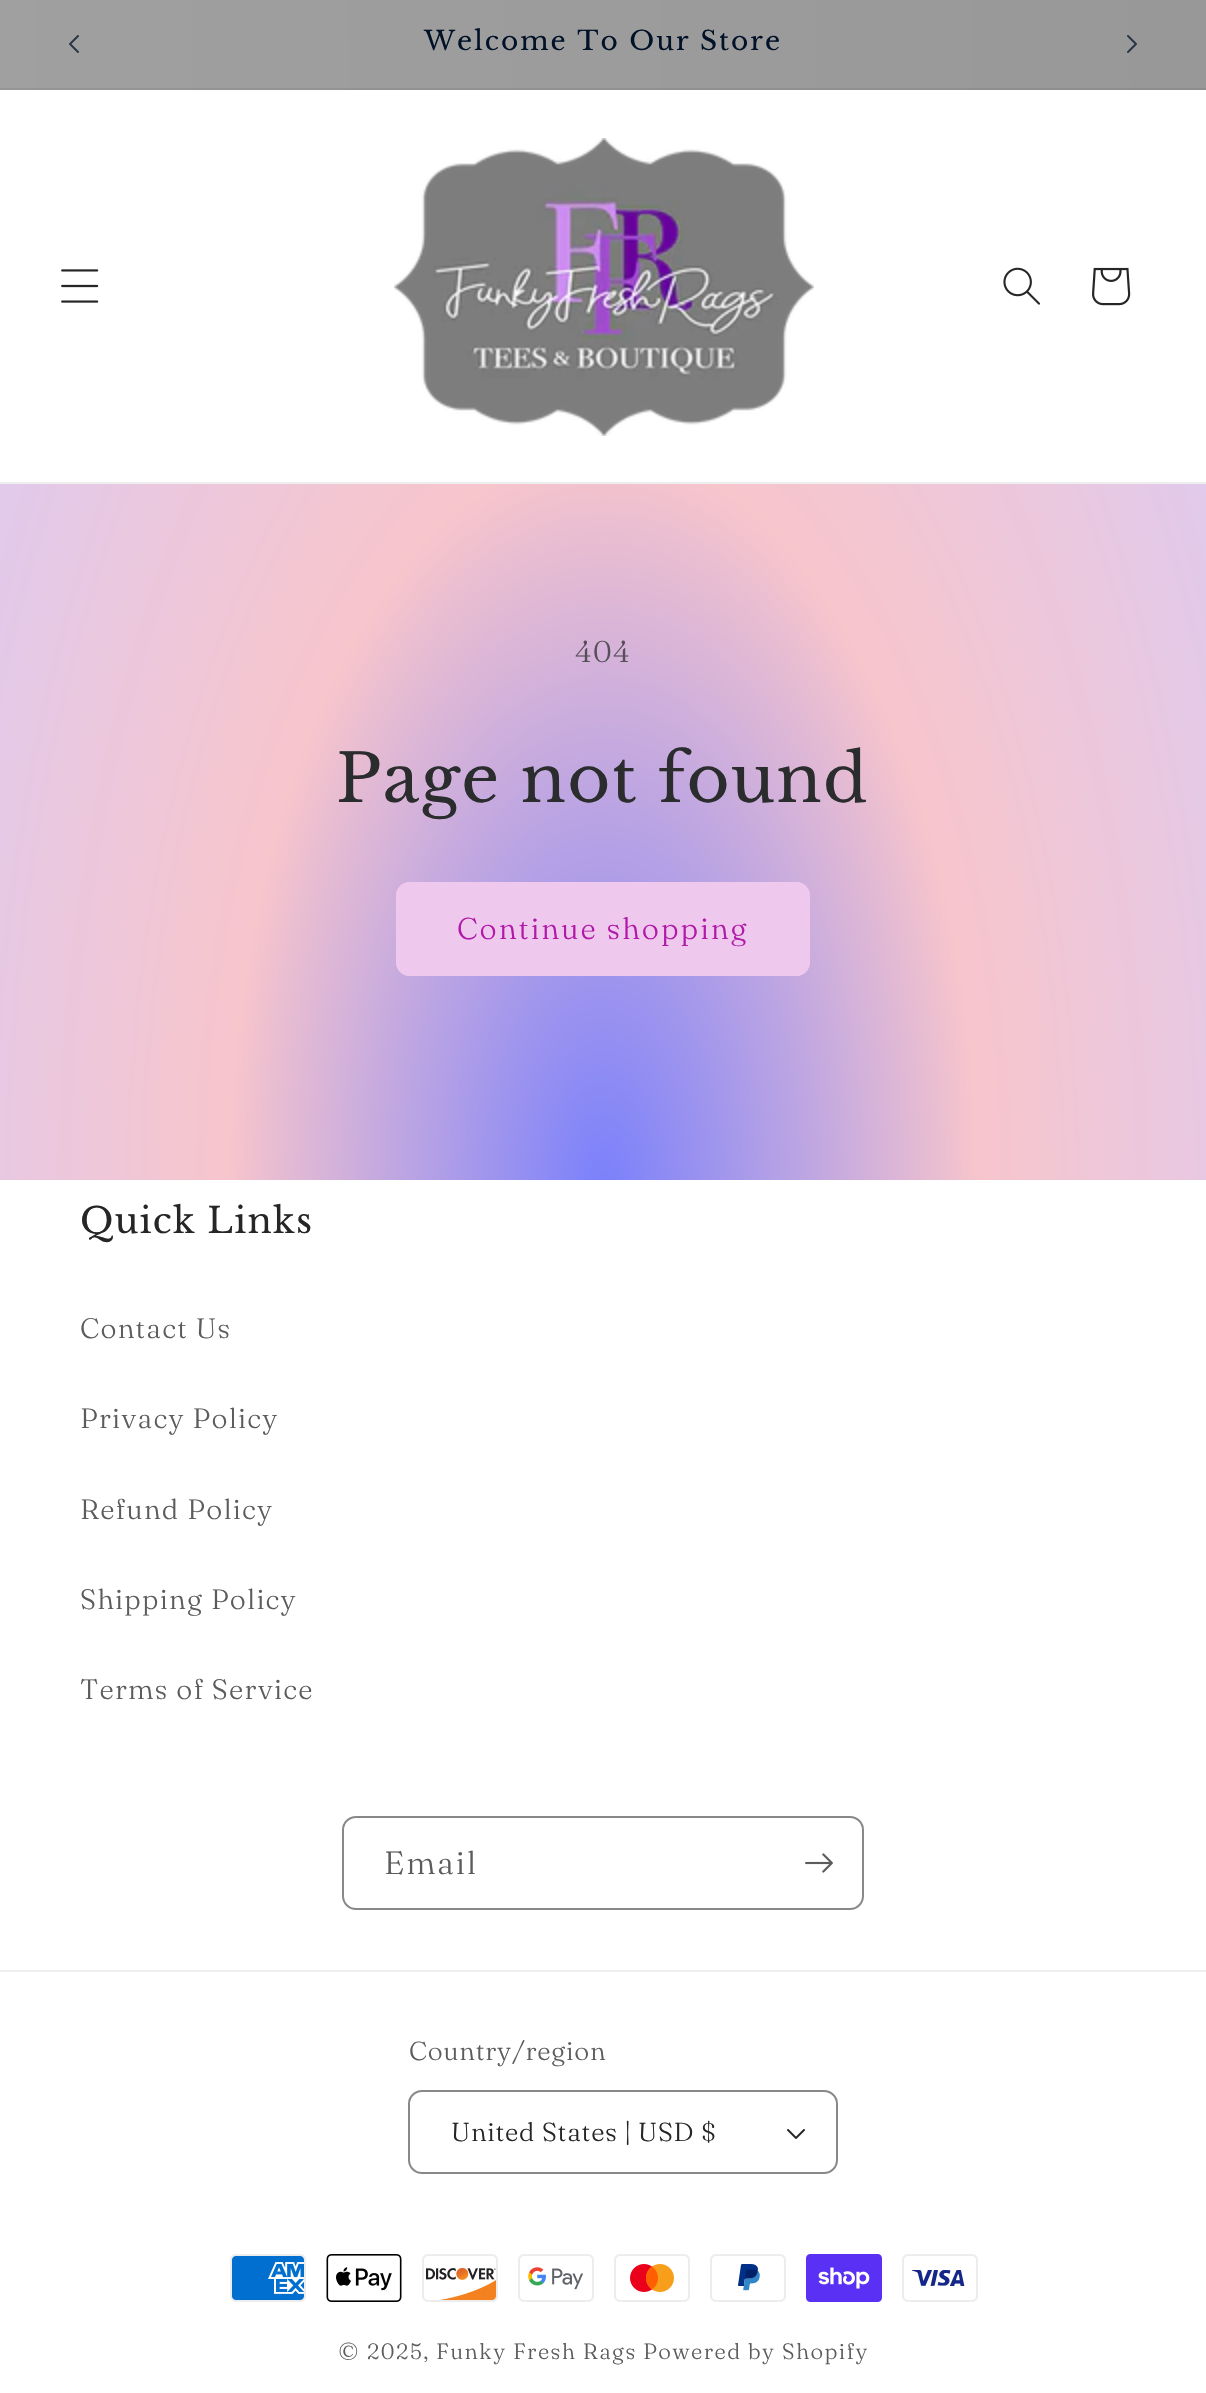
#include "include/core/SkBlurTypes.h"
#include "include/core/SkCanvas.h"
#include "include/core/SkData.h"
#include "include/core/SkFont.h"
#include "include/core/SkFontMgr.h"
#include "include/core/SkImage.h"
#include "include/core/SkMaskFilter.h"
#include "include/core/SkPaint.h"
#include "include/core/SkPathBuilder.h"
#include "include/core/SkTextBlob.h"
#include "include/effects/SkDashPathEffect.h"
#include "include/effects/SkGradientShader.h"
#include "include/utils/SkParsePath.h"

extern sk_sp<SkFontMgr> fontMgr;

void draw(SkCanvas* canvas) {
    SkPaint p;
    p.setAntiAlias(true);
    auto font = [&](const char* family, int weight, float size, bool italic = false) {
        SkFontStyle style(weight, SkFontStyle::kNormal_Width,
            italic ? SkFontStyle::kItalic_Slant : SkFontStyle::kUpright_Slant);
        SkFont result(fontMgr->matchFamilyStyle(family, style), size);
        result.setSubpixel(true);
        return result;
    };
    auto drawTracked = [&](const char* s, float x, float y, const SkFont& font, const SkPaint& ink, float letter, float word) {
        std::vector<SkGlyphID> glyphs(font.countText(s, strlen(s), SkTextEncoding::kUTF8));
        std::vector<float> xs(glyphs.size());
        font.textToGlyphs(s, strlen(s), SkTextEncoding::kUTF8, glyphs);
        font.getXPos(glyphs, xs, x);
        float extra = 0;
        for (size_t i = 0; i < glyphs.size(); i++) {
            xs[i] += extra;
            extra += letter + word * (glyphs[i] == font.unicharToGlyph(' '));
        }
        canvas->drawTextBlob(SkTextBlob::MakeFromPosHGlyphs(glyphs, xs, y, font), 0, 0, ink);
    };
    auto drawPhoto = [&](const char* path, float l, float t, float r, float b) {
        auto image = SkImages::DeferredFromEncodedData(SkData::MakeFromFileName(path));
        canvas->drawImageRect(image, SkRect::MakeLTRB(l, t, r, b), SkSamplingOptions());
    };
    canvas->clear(0xFFFFFFFF);
    {
        const SkColor colors[] = {0xFF7980FC, 0xFFF7C5CC, 0xFFD7CCFA};
        const float stops[] = {0, 0.44f, 1};
        SkMatrix m = SkMatrix::Translate(603, 1197).preScale(853, 1693);
        p.setShader(SkGradientShader::MakeRadial({0, 0}, 1, colors, stops, 3, SkTileMode::kClamp, 0, &m));
        p.setAlpha(255);
    }
    canvas->drawRect(SkRect::MakeLTRB(0, 484, 1206, 1180), p);
    {
        const SkColor colors[] = {0xFFA0A0A0, 0xFF989898, 0xFFD7CCFA};
        const float stops[] = {0, 1, 1};
        const SkPoint ends[] = {{-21, 1208}, {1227, 1186}};
        p.setShader(SkGradientShader::MakeLinear(ends, colors, stops, 3, SkTileMode::kClamp));
        p.setAlpha(255);
    }
    canvas->drawRect(SkRect::MakeLTRB(0, 0, 1206, 88), p);
    {
        const SkColor colors[] = {0xFF939596, 0xFF8C8D8F, 0xFFC6BDE9};
        const float stops[] = {0, 1, 1};
        const SkPoint ends[] = {{-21, 1208}, {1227, 1186}};
        p.setShader(SkGradientShader::MakeLinear(ends, colors, stops, 3, SkTileMode::kClamp));
        p.setAlpha(255);
    }
    canvas->drawRect(SkRect::MakeLTRB(0, 88, 1206, 90), p);
    drawPhoto("media/1.png", 69, 35, 79, 53);
    auto font1 = font("Libre Baskerville", 400, 26.4f);
    p.setShader(nullptr);
    p.setColor(0xFF001128);
    drawTracked("Welcome To Our Store", 424, 50, font1, p, 2, 0);
    drawPhoto("media/2.png", 1127, 35, 1137, 53);
    p.setColor(0xFFEEEEEE);
    canvas->drawRect(SkRect::MakeLTRB(0, 482, 1206, 484), p);
    drawPhoto("media/3.png", 61, 269, 99, 303);
    drawPhoto("media/4.png", 394, 138, 814, 436);
    drawPhoto("media/5.png", 1003, 267, 1040, 305);
    drawPhoto("media/6.png", 1092, 267, 1131, 306);
    auto font2 = font("Fraunces", 300, 30);
    p.setColor(0xFF564E58);
    drawTracked("404", 575, 662, font2, p, 1.25f, 0);
    auto font3 = font("Libre Baskerville", 400, 66);
    p.setColor(0xFF2B2C2D);
    drawTracked("Page not found", 336, 802, font3, p, 1.25f, 0);
    p.setColor(0xFFEFC8ED);
    canvas->drawRoundRect(SkRect::MakeLTRB(396, 882, 810, 976), 14, 14, p);
    p.setStyle(SkPaint::kStroke_Style);
    p.setStrokeWidth(2);
    canvas->drawRoundRect(SkRect::MakeLTRB(397, 883, 809, 975), 13, 13, p);
    auto font4 = font("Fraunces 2", 300, 30);
    p.setStyle(SkPaint::kFill_Style);
    p.setColor(0xFFB119A8);
    drawTracked("Continue shopping", 457, 939, font4, p, 2, 0);
    auto font5 = font("Libre Baskerville", 400, 35.25f);
    p.setColor(0xFF262626);
    drawTracked("Quick Links", 80, 1233, font5, p, 1.25f, 0);
    auto font6 = font("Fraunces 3", 300, 28);
    p.setColor(0xFF5C5C5C);
    {
        const struct { const char* s; float x, y; } items[] = {
            {"Contact Us", 80, 1338},
            {"Privacy Policy", 80, 1428},
            {"Refund Policy", 80, 1519},
            {"Shipping Policy", 80, 1609},
            {"Terms of Service", 80, 1699},
        };
        for (auto [s, x, y] : items) {
            drawTracked(s, x, y, font6, p, 1.25f, 0);
        }
    }
    p.setStyle(SkPaint::kStroke_Style);
    p.setColor(0xFF888888);
    canvas->drawRoundRect(SkRect::MakeLTRB(343, 1817, 863, 1909), 13, 13, p);
    auto font7 = font("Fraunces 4", 300, 32);
    p.setStyle(SkPaint::kFill_Style);
    p.setColor(0xFF5C5C5C);
    drawTracked("Email", 384, 1874, font7, p, 2, 0);
    drawPhoto("media/7.png", 805, 1853, 833, 1873);
    p.setColor(0xFFEEEEEE);
    canvas->drawRect(SkRect::MakeLTRB(0, 1970, 1206, 1972), p);
    auto font8 = font("Fraunces", 300, 26);
    p.setColor(0xFF5C5C5C);
    drawTracked("Country/region", 409, 2060, font8, p, 0.75f, 0);
    drawPhoto("media/8.png", 787, 2129, 805, 2139);
    p.setStyle(SkPaint::kStroke_Style);
    p.setColor(0xFF888888);
    canvas->drawRoundRect(SkRect::MakeLTRB(409, 2091, 837, 2173), 13, 13, p);
    p.setStyle(SkPaint::kFill_Style);
    p.setColor(0xFF262626);
    drawTracked("United States |", 451, 2141, font8, p, 0.75f, 0);
    drawTracked("USD $", 638, 2141, font8, p, 0.75f, 0);
    drawPhoto("media/9.png", 230, 2254, 306, 2302);
    drawPhoto("media/10.png", 326, 2254, 402, 2302);
    drawPhoto("media/11.png", 422, 2254, 498, 2302);
    drawPhoto("media/12.png", 518, 2254, 594, 2302);
    drawPhoto("media/13.png", 614, 2254, 690, 2302);
    drawPhoto("media/14.png", 710, 2254, 786, 2302);
    drawPhoto("media/15.png", 806, 2254, 882, 2302);
    drawPhoto("media/16.png", 902, 2254, 978, 2302);
    auto font9 = font("Fraunces", 300, 22);
    p.setColor(0xFF5C5C5C);
    drawTracked("© 2025, Funky Fresh Rags", 338, 2359, font9, p, 1.4f, 0);
    drawTracked("Powered by Shopify", 643, 2359, font9, p, 1.4f, 0);
}
